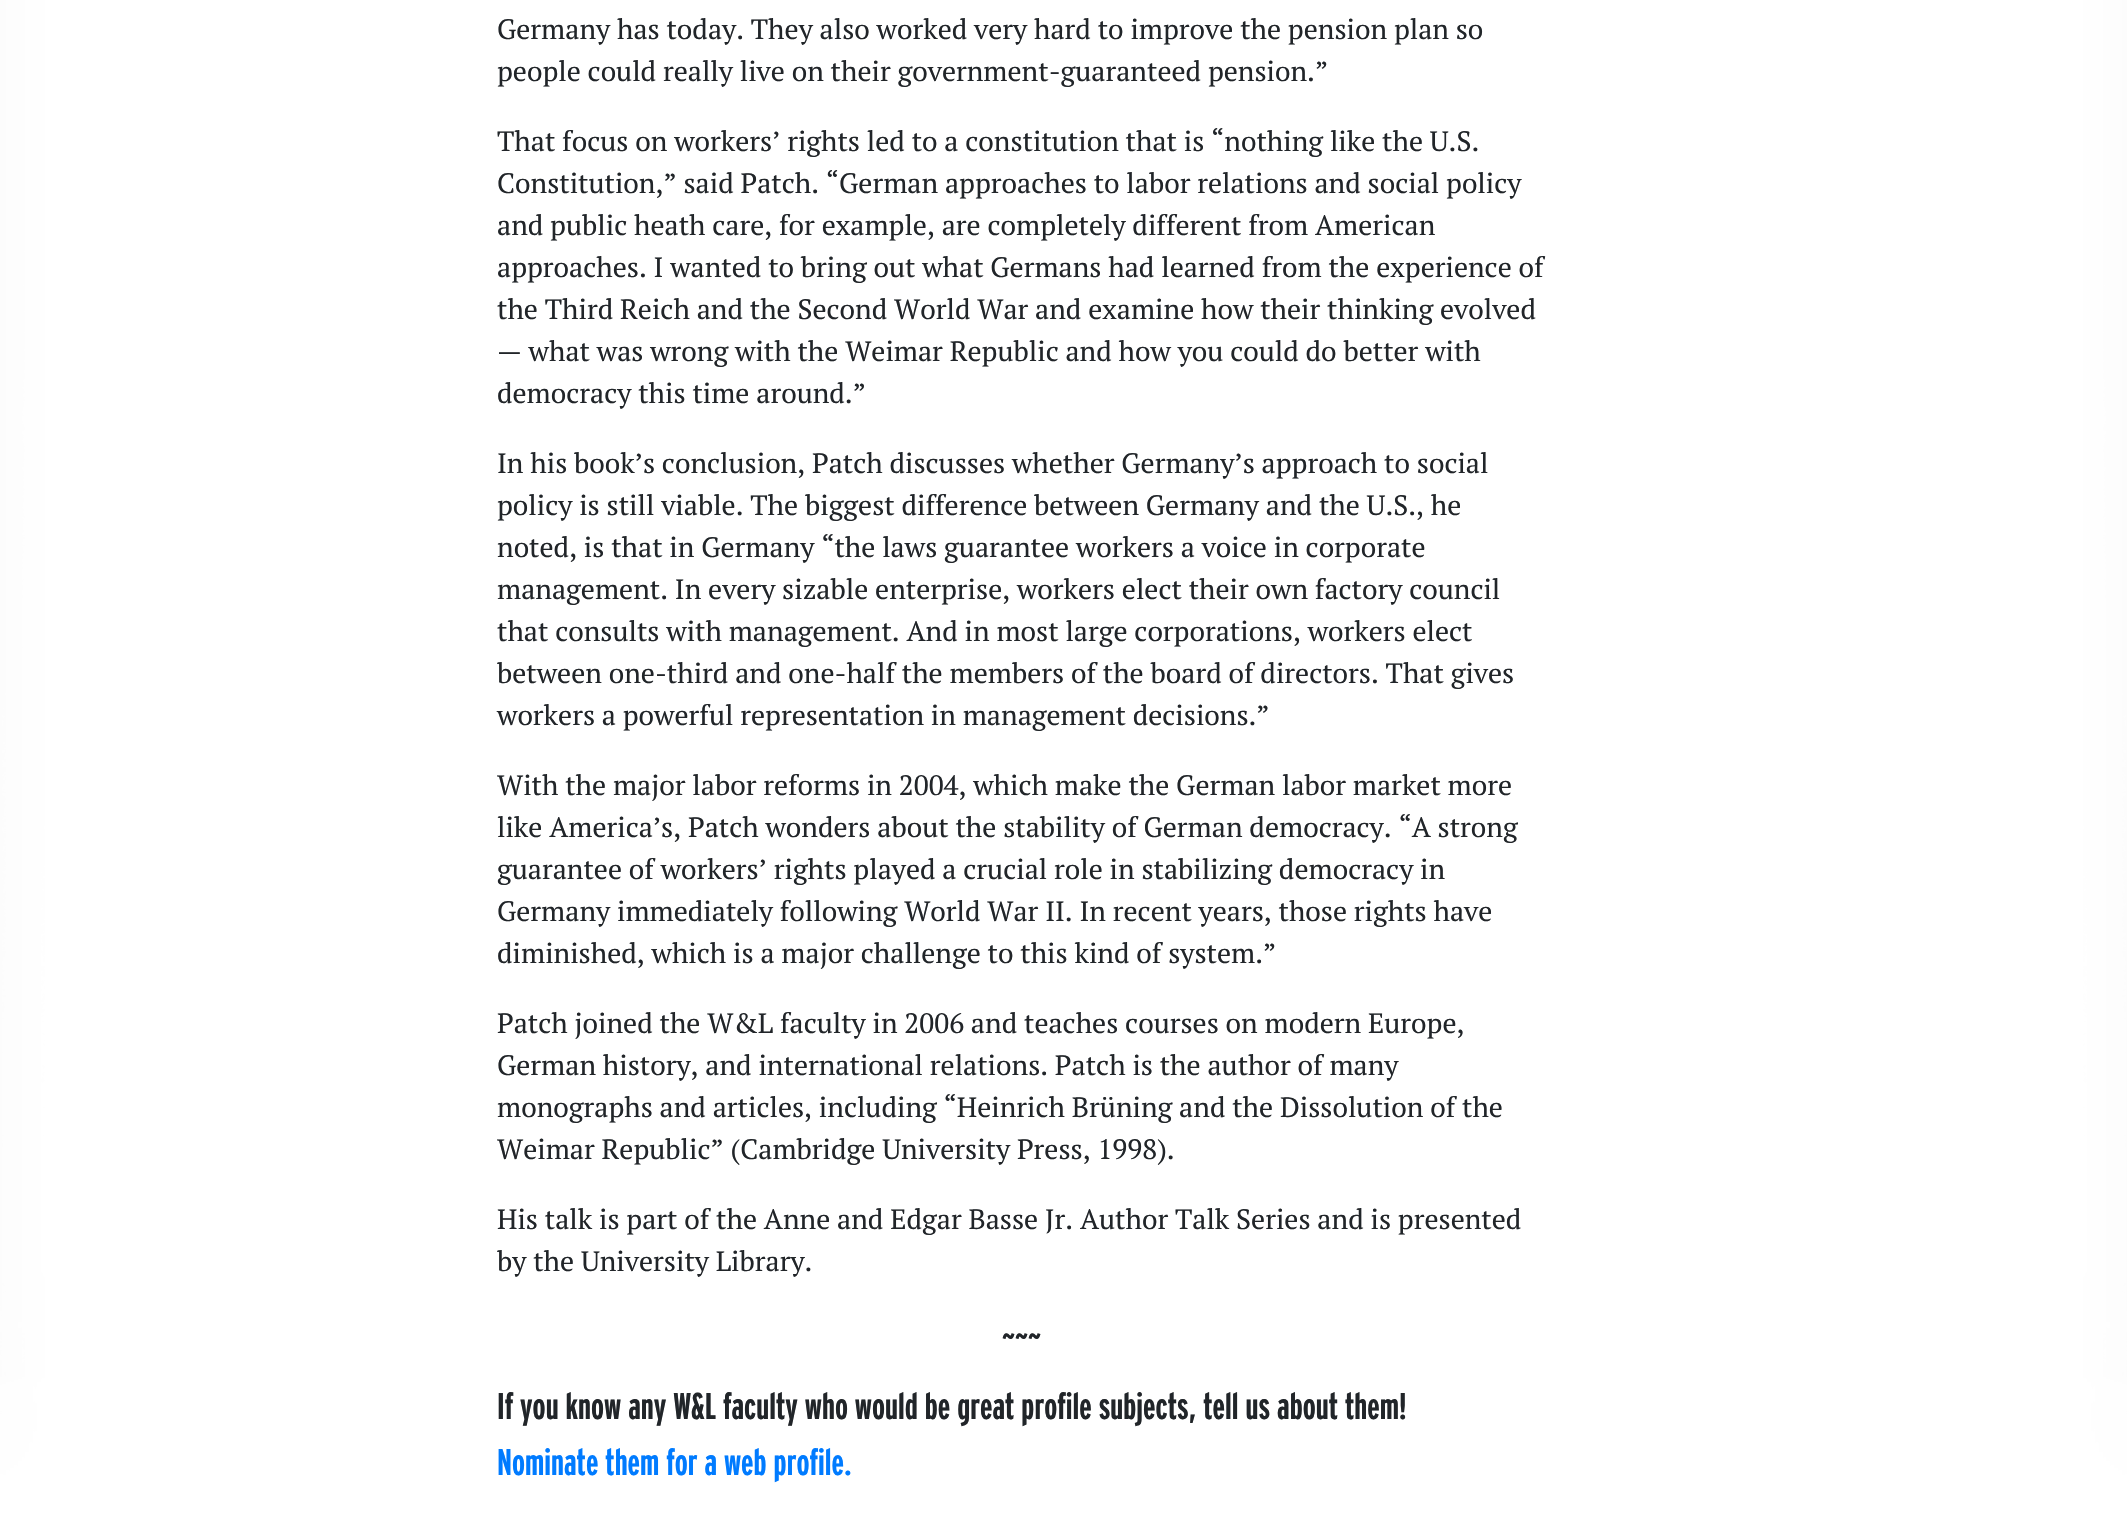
#include "include/core/SkBlurTypes.h"
#include "include/core/SkCanvas.h"
#include "include/core/SkData.h"
#include "include/core/SkFont.h"
#include "include/core/SkFontMgr.h"
#include "include/core/SkImage.h"
#include "include/core/SkMaskFilter.h"
#include "include/core/SkPaint.h"
#include "include/core/SkPathBuilder.h"
#include "include/core/SkTextBlob.h"
#include "include/effects/SkDashPathEffect.h"
#include "include/effects/SkGradientShader.h"
#include "include/utils/SkParsePath.h"

extern sk_sp<SkFontMgr> fontMgr;

void draw(SkCanvas* canvas) {
    SkPaint p;
    p.setAntiAlias(true);
    auto font = [&](const char* family, int weight, float size, bool italic = false) {
        SkFontStyle style(weight, SkFontStyle::kNormal_Width,
            italic ? SkFontStyle::kItalic_Slant : SkFontStyle::kUpright_Slant);
        SkFont result(fontMgr->matchFamilyStyle(family, style), size);
        result.setSubpixel(true);
        return result;
    };
    auto drawPhoto = [&](const char* path, float l, float t, float r, float b) {
        auto image = SkImages::DeferredFromEncodedData(SkData::MakeFromFileName(path));
        canvas->drawImageRect(image, SkRect::MakeLTRB(l, t, r, b), SkSamplingOptions());
    };
    canvas->clear(0xFFFFFFFF);
    drawPhoto("media/1.png", 0, 0, 61, 1512);
    {
        const SkColor colors[] = {0x00FFFFFF, 0xFFFFFFFF, 0xFFFFFFFF};
        const float stops[] = {0, 0.5f, 1};
        const SkPoint ends[] = {{-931, 768}, {1064, 768}};
        p.setShader(SkGradientShader::MakeLinear(ends, colors, stops, 3, SkTileMode::kClamp));
        p.setAlpha(255);
    }
    canvas->drawRect(SkRect::MakeLTRB(0, 0, 61, 1512), p);
    drawPhoto("media/2.png", 2067, 0, 2127, 1512);
    auto font1 = font("PT Serif", 400, 28);
    p.setShader(nullptr);
    p.setColor(0xFF212529);
    {
        const struct { const char* s; float x, y; } items[] = {
            {"Germany has today. They also worked very hard to improve the pension plan so", 497, 39},
            {"people could really live on their government-guaranteed pension.”", 497, 81},
            {"That focus on workers’ rights led to a constitution that is “nothing like the U.S.", 497, 151},
            {"Constitution,” said Patch. “German approaches to labor relations and social policy", 497, 193},
            {"and public heath care, for example, are completely different from American", 497, 235},
            {"approaches. I wanted to bring out what Germans had learned from the experience of", 497, 277},
            {"the Third Reich and the Second World War and examine how their thinking evolved", 497, 319},
            {"— what was wrong with the Weimar Republic and how you could do better with", 497, 361},
            {"democracy this time around.”", 497, 403},
            {"In his book’s conclusion, Patch discusses whether Germany’s approach to social", 497, 473},
            {"policy is still viable. The biggest difference between Germany and the U.S., he", 497, 515},
            {"noted, is that in Germany “the laws guarantee workers a voice in corporate", 497, 557},
            {"management. In every sizable enterprise, workers elect their own factory council", 497, 599},
            {"that consults with management. And in most large corporations, workers elect", 497, 641},
            {"between one-third and one-half the members of the board of directors. That gives", 497, 683},
            {"workers a powerful representation in management decisions.”", 497, 725},
            {"With the major labor reforms in 2004, which make the German labor market more", 497, 795},
            {"like America’s, Patch wonders about the stability of German democracy. “A strong", 497, 837},
            {"guarantee of workers’ rights played a crucial role in stabilizing democracy in", 497, 879},
            {"Germany immediately following World War II. In recent years, those rights have", 497, 921},
            {"diminished, which is a major challenge to this kind of system.”", 497, 963},
            {"Patch joined the W&L faculty in 2006 and teaches courses on modern Europe,", 497, 1033},
            {"German history, and international relations. Patch is the author of many", 497, 1075},
            {"monographs and articles, including “Heinrich Brüning and the Dissolution of the", 497, 1117},
            {"Weimar Republic” (Cambridge University Press, 1998).", 497, 1159},
            {"His talk is part of the Anne and Edgar Basse Jr. Author Talk Series and is presented", 497, 1229},
            {"by the University Library.", 497, 1271},
        };
        for (auto [s, x, y] : items) {
            canvas->drawString(s, x, y, font1, p);
        }
    }
    auto font2 = font("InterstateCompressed", 700, 37.1f);
    canvas->drawString("~~~", 1002, 1350, font2, p);
    canvas->drawString("If you know any W&L faculty who would be great profile subjects, tell us about them!", 497, 1419, font2, p);
    p.setColor(0xFF007BFF);
    canvas->drawString("Nominate them for a web profile.", 497, 1475, font2, p);
    {
        const SkColor colors[] = {0x00FFFFFF, 0xFFFFFFFF, 0xFFFFFFFF};
        const float stops[] = {0, 0.5f, 1};
        const SkPoint ends[] = {{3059, 768}, {1064, 768}};
        p.setShader(SkGradientShader::MakeLinear(ends, colors, stops, 3, SkTileMode::kClamp));
        p.setAlpha(255);
    }
    canvas->drawRect(SkRect::MakeLTRB(2067, 0, 2127, 1512), p);
}
